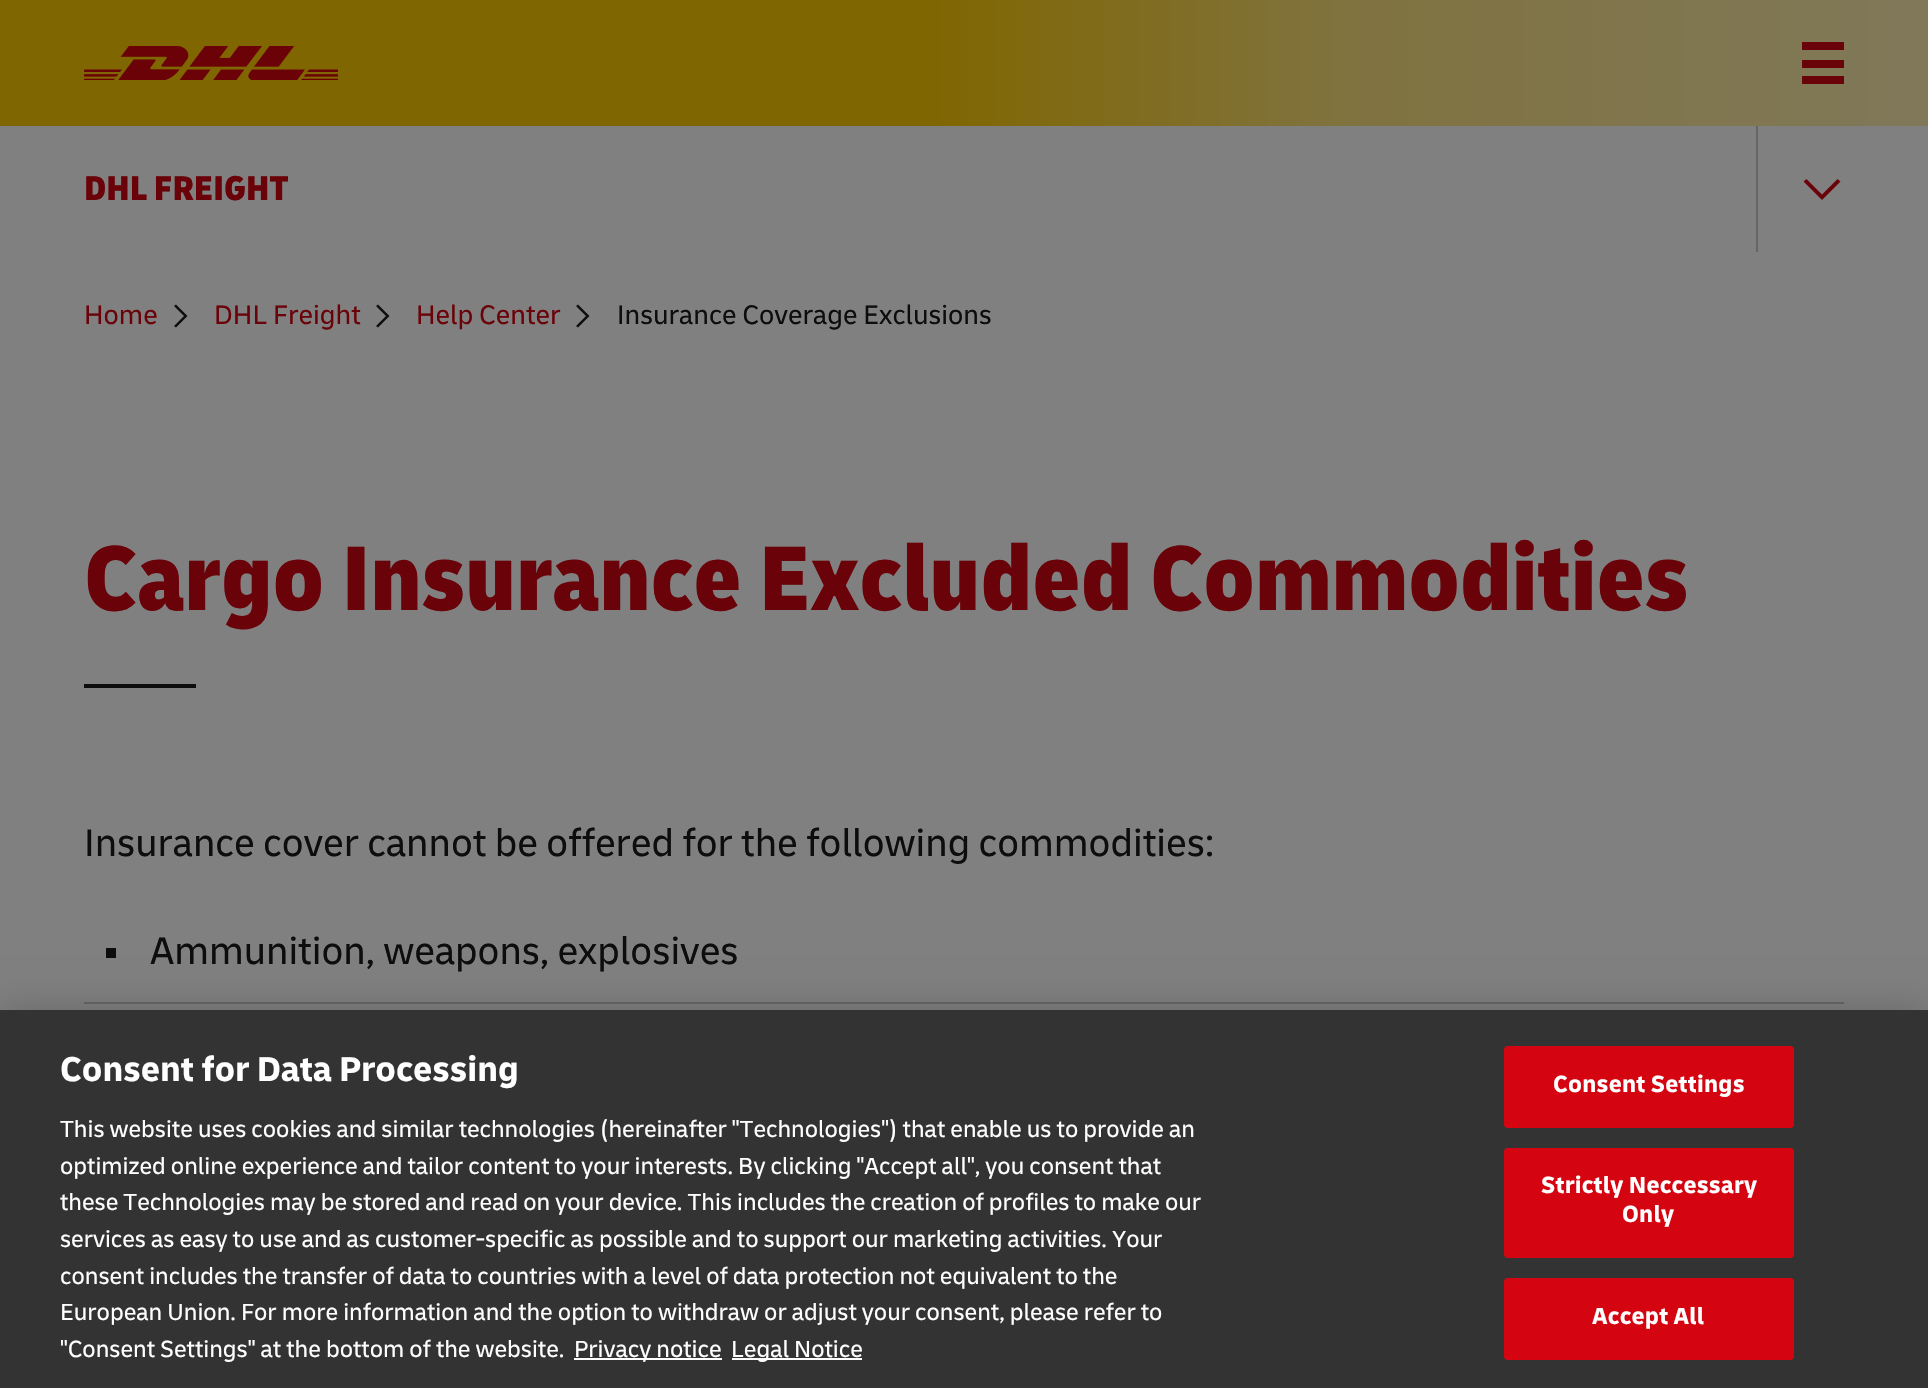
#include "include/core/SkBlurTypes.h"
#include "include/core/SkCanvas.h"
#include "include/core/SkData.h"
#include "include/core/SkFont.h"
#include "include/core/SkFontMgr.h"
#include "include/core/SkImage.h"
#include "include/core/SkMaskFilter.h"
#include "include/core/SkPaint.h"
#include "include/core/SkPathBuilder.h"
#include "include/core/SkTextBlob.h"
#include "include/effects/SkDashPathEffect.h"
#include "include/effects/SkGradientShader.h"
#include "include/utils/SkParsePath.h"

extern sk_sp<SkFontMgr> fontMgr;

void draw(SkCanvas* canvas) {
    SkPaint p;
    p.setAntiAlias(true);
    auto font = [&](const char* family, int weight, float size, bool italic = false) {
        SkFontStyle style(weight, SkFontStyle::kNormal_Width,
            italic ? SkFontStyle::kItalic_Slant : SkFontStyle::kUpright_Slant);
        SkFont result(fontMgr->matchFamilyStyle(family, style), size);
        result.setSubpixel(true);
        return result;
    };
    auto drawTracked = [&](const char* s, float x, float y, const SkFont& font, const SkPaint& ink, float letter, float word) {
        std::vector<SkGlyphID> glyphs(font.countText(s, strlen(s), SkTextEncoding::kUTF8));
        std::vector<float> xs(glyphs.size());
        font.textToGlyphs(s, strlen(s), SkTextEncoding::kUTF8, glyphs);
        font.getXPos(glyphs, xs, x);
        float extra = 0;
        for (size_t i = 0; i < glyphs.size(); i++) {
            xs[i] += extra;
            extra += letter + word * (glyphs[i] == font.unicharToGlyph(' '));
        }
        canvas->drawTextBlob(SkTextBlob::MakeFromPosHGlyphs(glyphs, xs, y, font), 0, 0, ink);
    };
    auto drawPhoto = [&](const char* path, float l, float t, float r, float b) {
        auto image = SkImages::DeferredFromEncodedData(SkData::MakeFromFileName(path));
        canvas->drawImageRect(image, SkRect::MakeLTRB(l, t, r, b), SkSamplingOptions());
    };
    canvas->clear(0xFF808080);
    {
        const SkColor colors[] = {0xFF806600, 0xFF806600, 0xFF807340, 0xFF807859};
        const float stops[] = {0, 0.48f, 0.7f, 1};
        const SkPoint ends[] = {{0, 63}, {1928, 63}};
        p.setShader(SkGradientShader::MakeLinear(ends, colors, stops, 4, SkTileMode::kClamp));
        p.setAlpha(255);
    }
    canvas->drawRect(SkRect::MakeLTRB(0, 0, 1928, 126), p);
    drawPhoto("media/1.png", 84, 46, 338, 80);
    p.setShader(nullptr);
    {
        const struct { float l, t, r, b; SkColor color; } items[] = {
            {1802, 42, 1844, 50, 0xFF6A0309},
            {1802, 60, 1844, 68, 0xFF6A0309},
            {1802, 76, 1844, 84, 0xFF6A0309},
        };
        for (auto [l, t, r, b, color] : items) {
            p.setColor(color);
            canvas->drawRect(SkRect::MakeLTRB(l, t, r, b), p);
        }
    }
    auto font1 = font("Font", 800, 36);
    canvas->drawString("DHL FREIGHT", 84, 200, font1, p);
    p.setColor(0xFF666666);
    canvas->drawRect(SkRect::MakeLTRB(1756, 126, 1758, 252), p);
    p.setColor(0xFF6A0309);
    canvas->drawPath(SkPathBuilder().moveTo(1822, 200).lineTo(1803.5f, 181.5f).lineTo(1806.5f, 179).lineTo(1822, 194.5f).lineTo(1837.5f, 179).lineTo(1840.5f, 181.5f).close().detach(), p);
    auto font2 = font("Font", 400, 28);
    canvas->drawString("Home", 84, 324, font2, p);
    p.setColor(0xFF0D0D0D);
    canvas->drawPath(SkPathBuilder().moveTo(176, 327.5f).lineTo(174, 326).lineTo(184, 316).lineTo(174, 306).lineTo(176, 304.5f).lineTo(187.5f, 316).close().detach(), p);
    p.setColor(0xFF6A0309);
    canvas->drawString("DHL Freight", 214, 324, font2, p);
    p.setColor(0xFF0D0D0D);
    canvas->drawPath(SkPathBuilder().moveTo(378, 327.5f).lineTo(376, 326).lineTo(386, 316).lineTo(376, 306).lineTo(378, 304.5f).lineTo(389.5f, 316).close().detach(), p);
    p.setColor(0xFF6A0309);
    canvas->drawString("Help Center", 416, 324, font2, p);
    p.setColor(0xFF0D0D0D);
    canvas->drawPath(SkPathBuilder().moveTo(578, 327.5f).lineTo(576, 326).lineTo(586, 316).lineTo(576, 306).lineTo(578, 304.5f).lineTo(589.5f, 316).close().detach(), p);
    canvas->drawString("Insurance Coverage Exclusions", 617, 324, font2, p);
    auto font3 = font("Font", 800, 96);
    p.setColor(0xFF6A0309);
    canvas->drawString("Cargo Insurance Excluded Commodities", 84, 610, font3, p);
    p.setColor(0xFF0D0D0D);
    canvas->drawRect(SkRect::MakeLTRB(84, 684, 196, 688), p);
    auto font4 = font("Font", 400, 40);
    canvas->drawString("Insurance cover cannot be offered for the following commodities:", 84, 856, font4, p);
    p.setColor(0xFF666666);
    canvas->drawRect(SkRect::MakeLTRB(84, 1002, 1844, 1004), p);
    p.setColor(0xFF0D0D0D);
    canvas->drawRect(SkRect::MakeLTRB(106, 948, 116, 958), p);
    canvas->drawString("Ammunition, weapons, explosives", 150, 964, font4, p);
    p.setColor(0x33000000);
    p.setMaskFilter(SkMaskFilter::MakeBlur(kNormal_SkBlurStyle, 18));
    canvas->drawRect(SkRect::MakeLTRB(0, 1010, 1928, 1388), p);
    p.setMaskFilter(nullptr);
    p.setColor(0xFF333333);
    canvas->drawRect(SkRect::MakeLTRB(0, 1010, 1928, 1388), p);
    auto font5 = font("Font", 700, 36);
    p.setColor(0xFFFFFFFF);
    canvas->drawString("Consent for Data Processing", 60, 1081, font5, p);
    auto font6 = font("Font", 400, 24.4f);
    {
        const struct { const char* s; float x, y; } items[] = {
            {"This website uses cookies and similar technologies (hereinafter \"Technologies\") that enable us to provide an", 60, 1137},
            {"optimized online experience and tailor content to your interests. By clicking \"Accept all\", you consent that", 60, 1174},
            {"these Technologies may be stored and read on your device. This includes the creation of profiles to make our", 60, 1210},
            {"services as easy to use and as customer-specific as possible and to support our marketing activities. Your", 60, 1247},
            {"consent includes the transfer of data to countries with a level of data protection not equivalent to the", 60, 1284},
            {"European Union. For more information and the option to withdraw or adjust your consent, please refer to", 60, 1320},
            {"\"Consent Settings\" at the bottom of the website.", 60, 1357},
        };
        for (auto [s, x, y] : items) {
            canvas->drawString(s, x, y, font6, p);
        }
    }
    canvas->drawRect(SkRect::MakeLTRB(574, 1358, 722, 1360), p);
    canvas->drawString("Privacy notice", 574, 1357, font6, p);
    canvas->drawRect(SkRect::MakeLTRB(732, 1358, 862, 1360), p);
    canvas->drawString("Legal Notice", 731, 1357, font6, p);
    p.setColor(0xFFD40511);
    canvas->drawRoundRect(SkRect::MakeLTRB(1505, 1047, 1793, 1127), 3, 3, p);
    p.setStyle(SkPaint::kStroke_Style);
    p.setStrokeWidth(2);
    canvas->drawRoundRect(SkRect::MakeLTRB(1505, 1047, 1793, 1127), 3, 3, p);
    auto font7 = font("Font", 700, 24.4f);
    p.setStyle(SkPaint::kFill_Style);
    p.setColor(0xFFFFFFFF);
    drawTracked("Consent Settings", 1553, 1092, font7, p, 0.25f, 0);
    p.setColor(0xFFD40511);
    canvas->drawRoundRect(SkRect::MakeLTRB(1505, 1149, 1793, 1257), 3, 3, p);
    p.setStyle(SkPaint::kStroke_Style);
    canvas->drawRoundRect(SkRect::MakeLTRB(1505, 1149, 1793, 1257), 3, 3, p);
    p.setStyle(SkPaint::kFill_Style);
    p.setColor(0xFFFFFFFF);
    drawTracked("Strictly Neccessary", 1541, 1193, font7, p, 0.25f, 0);
    drawTracked("Only", 1622, 1222, font7, p, 0.25f, 0);
    p.setColor(0xFFD40511);
    canvas->drawRoundRect(SkRect::MakeLTRB(1505, 1279, 1793, 1359), 3, 3, p);
    p.setStyle(SkPaint::kStroke_Style);
    canvas->drawRoundRect(SkRect::MakeLTRB(1505, 1279, 1793, 1359), 3, 3, p);
    p.setStyle(SkPaint::kFill_Style);
    p.setColor(0xFFFFFFFF);
    drawTracked("Accept All", 1592, 1324, font7, p, 0.25f, 0);
}
